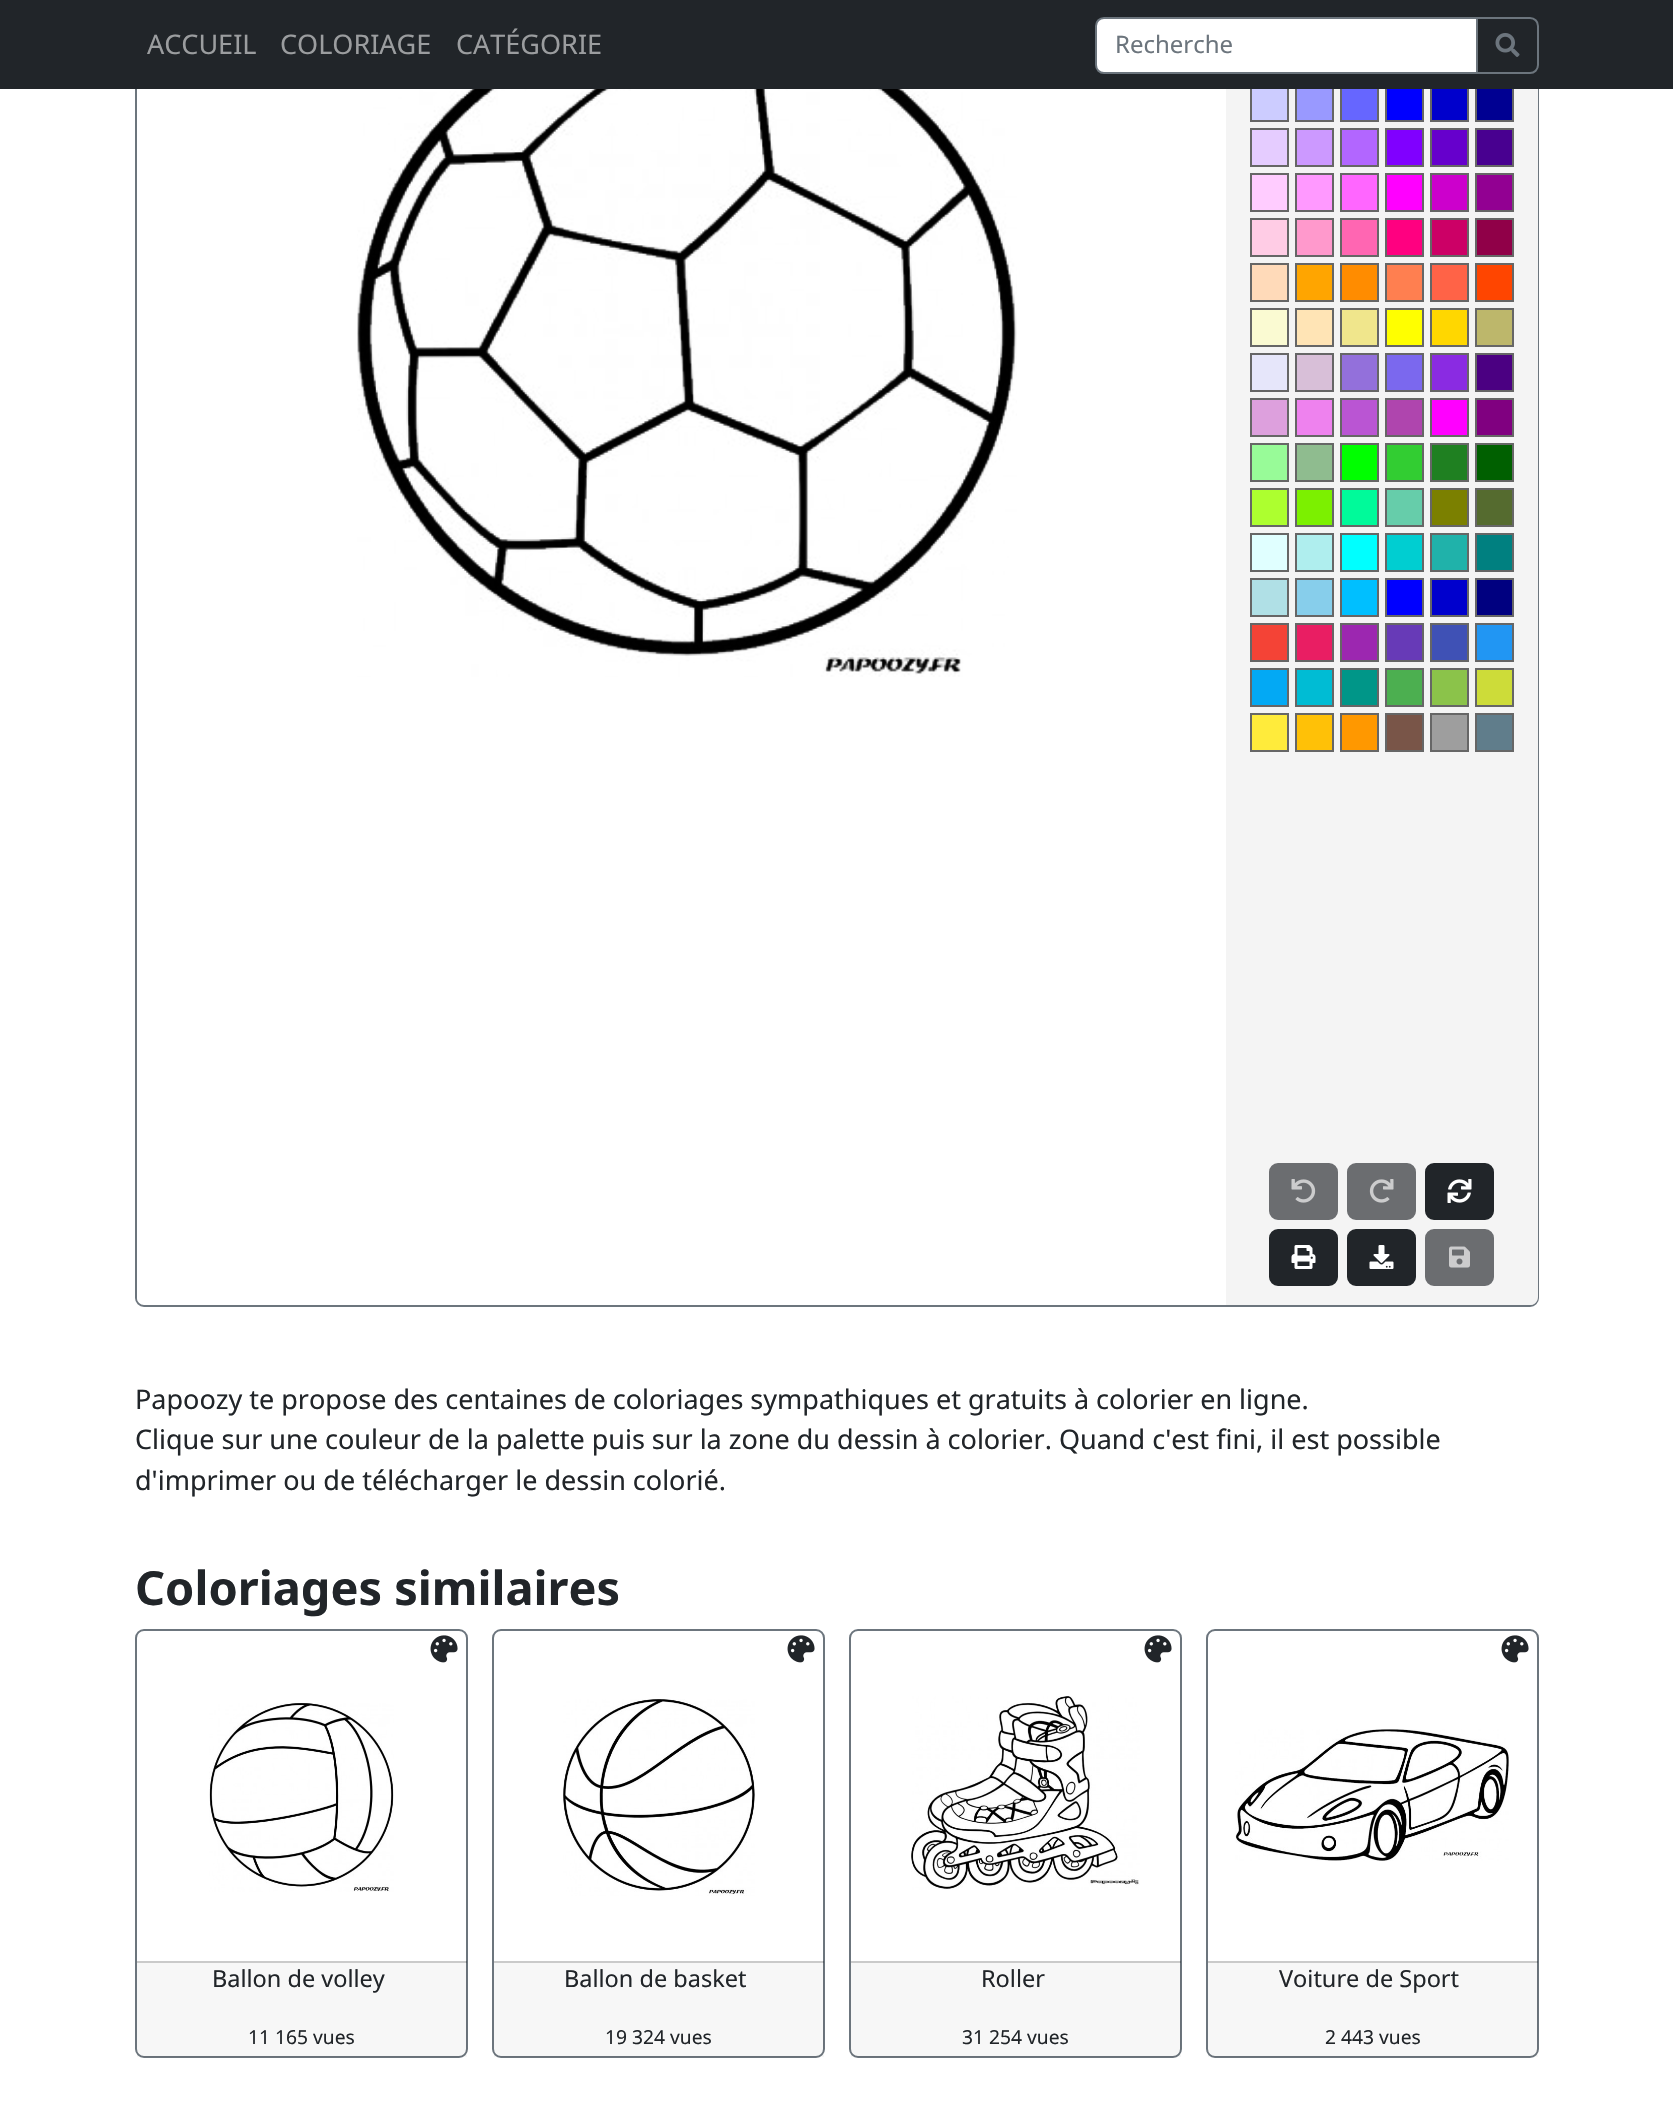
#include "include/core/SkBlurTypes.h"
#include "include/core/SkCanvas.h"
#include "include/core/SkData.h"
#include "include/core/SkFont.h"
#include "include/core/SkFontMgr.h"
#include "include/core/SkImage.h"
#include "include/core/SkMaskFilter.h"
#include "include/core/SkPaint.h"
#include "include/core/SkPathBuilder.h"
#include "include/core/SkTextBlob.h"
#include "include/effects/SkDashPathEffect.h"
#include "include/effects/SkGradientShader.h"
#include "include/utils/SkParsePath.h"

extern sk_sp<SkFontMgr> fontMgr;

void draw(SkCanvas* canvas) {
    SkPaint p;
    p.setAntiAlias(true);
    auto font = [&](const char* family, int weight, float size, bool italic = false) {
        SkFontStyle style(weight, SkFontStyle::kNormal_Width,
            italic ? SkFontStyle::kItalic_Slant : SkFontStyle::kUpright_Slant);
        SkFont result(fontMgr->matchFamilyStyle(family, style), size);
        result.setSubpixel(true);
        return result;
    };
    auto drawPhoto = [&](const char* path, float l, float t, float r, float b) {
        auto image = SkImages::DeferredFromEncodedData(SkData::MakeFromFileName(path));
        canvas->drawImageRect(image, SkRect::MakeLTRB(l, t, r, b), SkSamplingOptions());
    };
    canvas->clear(0xFFFFFFFF);
    p.setStyle(SkPaint::kStroke_Style);
    p.setStrokeWidth(2);
    p.setColor(0xFF6C757D);
    canvas->drawRoundRect(SkRect::MakeLTRB(136, -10, 1538, 1306), 8, 8, p);
    canvas->save();
    canvas->clipPath(SkPathBuilder().moveTo(145, -498).lineTo(1530, -498).cubicTo(1534.5f, -498, 1538, -494.5f, 1538, -490).lineTo(1538, 1297).cubicTo(1538, 1301.5f, 1534.5f, 1305, 1530, 1305).lineTo(145, 1305).cubicTo(140.5f, 1305, 137, 1301.5f, 137, 1297).lineTo(137, -490).cubicTo(137, -494.5f, 140.5f, -498, 145, -498).close().detach(), true);
    p.setStyle(SkPaint::kFill_Style);
    p.setColor(0xFFFFFFFF);
    canvas->drawPath(SkPathBuilder().moveTo(145, -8).lineTo(1226, -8).lineTo(1226, 1301).lineTo(137, 1301).lineTo(137, 0).cubicTo(137, -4.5f, 140.5f, -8, 145, -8).close().detach(), p);
    canvas->restore();
    p.setColor(0xFFF4F4F4);
    canvas->drawPath(SkPathBuilder().moveTo(1226, -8).lineTo(1530, -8).cubicTo(1534.5f, -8, 1538, -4.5f, 1538, 0).lineTo(1538, 1297).cubicTo(1538, 1301.5f, 1534.5f, 1305, 1530, 1305).lineTo(1226, 1305).close().detach(), p);
    p.setColor(0xFFCCCCFF);
    canvas->drawRect(SkRect::MakeLTRB(1252, 89, 1287, 120), p);
    p.setStyle(SkPaint::kStroke_Style);
    p.setColor(0xFF666666);
    canvas->drawRect(SkRect::MakeLTRB(1251, 84, 1288, 121), p);
    p.setStyle(SkPaint::kFill_Style);
    p.setColor(0xFF9999FF);
    canvas->drawRect(SkRect::MakeLTRB(1297, 89, 1332, 120), p);
    p.setStyle(SkPaint::kStroke_Style);
    p.setColor(0xFF666666);
    canvas->drawRect(SkRect::MakeLTRB(1296, 84, 1333, 121), p);
    p.setStyle(SkPaint::kFill_Style);
    p.setColor(0xFF6666FF);
    canvas->drawRect(SkRect::MakeLTRB(1342, 89, 1377, 120), p);
    p.setStyle(SkPaint::kStroke_Style);
    p.setColor(0xFF666666);
    canvas->drawRect(SkRect::MakeLTRB(1341, 84, 1378, 121), p);
    p.setStyle(SkPaint::kFill_Style);
    p.setColor(0xFF0000FF);
    canvas->drawRect(SkRect::MakeLTRB(1387, 89, 1422, 120), p);
    p.setStyle(SkPaint::kStroke_Style);
    p.setColor(0xFF666666);
    canvas->drawRect(SkRect::MakeLTRB(1386, 84, 1423, 121), p);
    p.setStyle(SkPaint::kFill_Style);
    p.setColor(0xFF0000CC);
    canvas->drawRect(SkRect::MakeLTRB(1432, 89, 1467, 120), p);
    p.setStyle(SkPaint::kStroke_Style);
    p.setColor(0xFF666666);
    canvas->drawRect(SkRect::MakeLTRB(1431, 84, 1468, 121), p);
    p.setStyle(SkPaint::kFill_Style);
    p.setColor(0xFF000092);
    canvas->drawRect(SkRect::MakeLTRB(1477, 89, 1512, 120), p);
    p.setStyle(SkPaint::kStroke_Style);
    p.setColor(0xFF666666);
    canvas->drawRect(SkRect::MakeLTRB(1476, 84, 1513, 121), p);
    p.setStyle(SkPaint::kFill_Style);
    p.setColor(0xFF212529);
    canvas->drawRect(SkRect::MakeLTRB(0, 0, 1673, 89), p);
    auto font1 = font("Noto Sans", 400, 27);
    p.setColor(0xFF9B9D9F);
    {
        const struct { const char* s; float x, y; } items[] = {
            {"ACCUEIL", 147, 54},
            {"COLORIAGE", 280, 54},
            {"CATÉGORIE", 456, 54},
        };
        for (auto [s, x, y] : items) {
            canvas->drawString(s, x, y, font1, p);
        }
    }
    p.setColor(0xFFFFFFFF);
    canvas->drawPath(SkPathBuilder().moveTo(1104, 18).lineTo(1477, 18).lineTo(1477, 73).lineTo(1104, 73).cubicTo(1099.5f, 73, 1096, 69.5f, 1096, 65).lineTo(1096, 26).cubicTo(1096, 21.5f, 1099.5f, 18, 1104, 18).close().detach(), p);
    p.setStyle(SkPaint::kStroke_Style);
    p.setColor(0xFF6C757D);
    canvas->drawPath(SkPathBuilder().moveTo(1104, 18).lineTo(1477, 18).lineTo(1477, 73).lineTo(1104, 73).cubicTo(1099.5f, 73, 1096, 69.5f, 1096, 65).lineTo(1096, 26).cubicTo(1096, 21.5f, 1099.5f, 18, 1104, 18).close().detach(), p);
    auto font2 = font("Noto Sans", 400, 24);
    p.setStyle(SkPaint::kFill_Style);
    canvas->drawString("Recherche", 1115, 53, font2, p);
    p.setStyle(SkPaint::kStroke_Style);
    canvas->drawPath(SkPathBuilder().moveTo(1477, 18).lineTo(1530, 18).cubicTo(1534.5f, 18, 1538, 21.5f, 1538, 26).lineTo(1538, 65).cubicTo(1538, 69.5f, 1534.5f, 73, 1530, 73).lineTo(1477, 73).close().detach(), p);
    drawPhoto("media/1.png", 1495, 33, 1520, 57);
    drawPhoto("media/2.png", 357, 89, 1015, 674);
    drawPhoto("media/3.png", 357, 89, 1017, 677);
    p.setStyle(SkPaint::kFill_Style);
    p.setColor(0xFFE5CCFF);
    canvas->drawRect(SkRect::MakeLTRB(1251, 129, 1288, 166), p);
    p.setStyle(SkPaint::kStroke_Style);
    p.setColor(0xFF666666);
    canvas->drawRect(SkRect::MakeLTRB(1251, 129, 1288, 166), p);
    p.setStyle(SkPaint::kFill_Style);
    p.setColor(0xFFCC99FF);
    canvas->drawRect(SkRect::MakeLTRB(1296, 129, 1333, 166), p);
    p.setStyle(SkPaint::kStroke_Style);
    p.setColor(0xFF666666);
    canvas->drawRect(SkRect::MakeLTRB(1296, 129, 1333, 166), p);
    p.setStyle(SkPaint::kFill_Style);
    p.setColor(0xFFB266FF);
    canvas->drawRect(SkRect::MakeLTRB(1341, 129, 1378, 166), p);
    p.setStyle(SkPaint::kStroke_Style);
    p.setColor(0xFF666666);
    canvas->drawRect(SkRect::MakeLTRB(1341, 129, 1378, 166), p);
    p.setStyle(SkPaint::kFill_Style);
    p.setColor(0xFF8000FF);
    canvas->drawRect(SkRect::MakeLTRB(1386, 129, 1423, 166), p);
    p.setStyle(SkPaint::kStroke_Style);
    p.setColor(0xFF666666);
    canvas->drawRect(SkRect::MakeLTRB(1386, 129, 1423, 166), p);
    p.setStyle(SkPaint::kFill_Style);
    p.setColor(0xFF6600CC);
    canvas->drawRect(SkRect::MakeLTRB(1431, 129, 1468, 166), p);
    p.setStyle(SkPaint::kStroke_Style);
    p.setColor(0xFF666666);
    canvas->drawRect(SkRect::MakeLTRB(1431, 129, 1468, 166), p);
    p.setStyle(SkPaint::kFill_Style);
    p.setColor(0xFF480090);
    canvas->drawRect(SkRect::MakeLTRB(1476, 129, 1513, 166), p);
    p.setStyle(SkPaint::kStroke_Style);
    p.setColor(0xFF666666);
    canvas->drawRect(SkRect::MakeLTRB(1476, 129, 1513, 166), p);
    p.setStyle(SkPaint::kFill_Style);
    p.setColor(0xFFFFCCFF);
    canvas->drawRect(SkRect::MakeLTRB(1251, 174, 1288, 211), p);
    p.setStyle(SkPaint::kStroke_Style);
    p.setColor(0xFF666666);
    canvas->drawRect(SkRect::MakeLTRB(1251, 174, 1288, 211), p);
    p.setStyle(SkPaint::kFill_Style);
    p.setColor(0xFFFF99FF);
    canvas->drawRect(SkRect::MakeLTRB(1296, 174, 1333, 211), p);
    p.setStyle(SkPaint::kStroke_Style);
    p.setColor(0xFF666666);
    canvas->drawRect(SkRect::MakeLTRB(1296, 174, 1333, 211), p);
    p.setStyle(SkPaint::kFill_Style);
    p.setColor(0xFFFF66FF);
    canvas->drawRect(SkRect::MakeLTRB(1341, 174, 1378, 211), p);
    p.setStyle(SkPaint::kStroke_Style);
    p.setColor(0xFF666666);
    canvas->drawRect(SkRect::MakeLTRB(1341, 174, 1378, 211), p);
    p.setStyle(SkPaint::kFill_Style);
    p.setColor(0xFFFF00FF);
    canvas->drawRect(SkRect::MakeLTRB(1386, 174, 1423, 211), p);
    p.setStyle(SkPaint::kStroke_Style);
    p.setColor(0xFF666666);
    canvas->drawRect(SkRect::MakeLTRB(1386, 174, 1423, 211), p);
    p.setStyle(SkPaint::kFill_Style);
    p.setColor(0xFFCC00CC);
    canvas->drawRect(SkRect::MakeLTRB(1431, 174, 1468, 211), p);
    p.setStyle(SkPaint::kStroke_Style);
    p.setColor(0xFF666666);
    canvas->drawRect(SkRect::MakeLTRB(1431, 174, 1468, 211), p);
    p.setStyle(SkPaint::kFill_Style);
    p.setColor(0xFF920092);
    canvas->drawRect(SkRect::MakeLTRB(1476, 174, 1513, 211), p);
    p.setStyle(SkPaint::kStroke_Style);
    p.setColor(0xFF666666);
    canvas->drawRect(SkRect::MakeLTRB(1476, 174, 1513, 211), p);
    p.setStyle(SkPaint::kFill_Style);
    p.setColor(0xFFFFCCE5);
    canvas->drawRect(SkRect::MakeLTRB(1251, 219, 1288, 256), p);
    p.setStyle(SkPaint::kStroke_Style);
    p.setColor(0xFF666666);
    canvas->drawRect(SkRect::MakeLTRB(1251, 219, 1288, 256), p);
    p.setStyle(SkPaint::kFill_Style);
    p.setColor(0xFFFF99CC);
    canvas->drawRect(SkRect::MakeLTRB(1296, 219, 1333, 256), p);
    p.setStyle(SkPaint::kStroke_Style);
    p.setColor(0xFF666666);
    canvas->drawRect(SkRect::MakeLTRB(1296, 219, 1333, 256), p);
    p.setStyle(SkPaint::kFill_Style);
    p.setColor(0xFFFF66B2);
    canvas->drawRect(SkRect::MakeLTRB(1341, 219, 1378, 256), p);
    p.setStyle(SkPaint::kStroke_Style);
    p.setColor(0xFF666666);
    canvas->drawRect(SkRect::MakeLTRB(1341, 219, 1378, 256), p);
    p.setStyle(SkPaint::kFill_Style);
    p.setColor(0xFFFF0080);
    canvas->drawRect(SkRect::MakeLTRB(1386, 219, 1423, 256), p);
    p.setStyle(SkPaint::kStroke_Style);
    p.setColor(0xFF666666);
    canvas->drawRect(SkRect::MakeLTRB(1386, 219, 1423, 256), p);
    p.setStyle(SkPaint::kFill_Style);
    p.setColor(0xFFCC0066);
    canvas->drawRect(SkRect::MakeLTRB(1431, 219, 1468, 256), p);
    p.setStyle(SkPaint::kStroke_Style);
    p.setColor(0xFF666666);
    canvas->drawRect(SkRect::MakeLTRB(1431, 219, 1468, 256), p);
    p.setStyle(SkPaint::kFill_Style);
    p.setColor(0xFF900048);
    canvas->drawRect(SkRect::MakeLTRB(1476, 219, 1513, 256), p);
    p.setStyle(SkPaint::kStroke_Style);
    p.setColor(0xFF666666);
    canvas->drawRect(SkRect::MakeLTRB(1476, 219, 1513, 256), p);
    p.setStyle(SkPaint::kFill_Style);
    p.setColor(0xFFFFDAB9);
    canvas->drawRect(SkRect::MakeLTRB(1251, 264, 1288, 301), p);
    p.setStyle(SkPaint::kStroke_Style);
    p.setColor(0xFF666666);
    canvas->drawRect(SkRect::MakeLTRB(1251, 264, 1288, 301), p);
    p.setStyle(SkPaint::kFill_Style);
    p.setColor(0xFFFFA500);
    canvas->drawRect(SkRect::MakeLTRB(1296, 264, 1333, 301), p);
    p.setStyle(SkPaint::kStroke_Style);
    p.setColor(0xFF666666);
    canvas->drawRect(SkRect::MakeLTRB(1296, 264, 1333, 301), p);
    p.setStyle(SkPaint::kFill_Style);
    p.setColor(0xFFFF8C00);
    canvas->drawRect(SkRect::MakeLTRB(1341, 264, 1378, 301), p);
    p.setStyle(SkPaint::kStroke_Style);
    p.setColor(0xFF666666);
    canvas->drawRect(SkRect::MakeLTRB(1341, 264, 1378, 301), p);
    p.setStyle(SkPaint::kFill_Style);
    p.setColor(0xFFFF7F50);
    canvas->drawRect(SkRect::MakeLTRB(1386, 264, 1423, 301), p);
    p.setStyle(SkPaint::kStroke_Style);
    p.setColor(0xFF666666);
    canvas->drawRect(SkRect::MakeLTRB(1386, 264, 1423, 301), p);
    p.setStyle(SkPaint::kFill_Style);
    p.setColor(0xFFFF6347);
    canvas->drawRect(SkRect::MakeLTRB(1431, 264, 1468, 301), p);
    p.setStyle(SkPaint::kStroke_Style);
    p.setColor(0xFF666666);
    canvas->drawRect(SkRect::MakeLTRB(1431, 264, 1468, 301), p);
    p.setStyle(SkPaint::kFill_Style);
    p.setColor(0xFFFF4500);
    canvas->drawRect(SkRect::MakeLTRB(1476, 264, 1513, 301), p);
    p.setStyle(SkPaint::kStroke_Style);
    p.setColor(0xFF666666);
    canvas->drawRect(SkRect::MakeLTRB(1476, 264, 1513, 301), p);
    p.setStyle(SkPaint::kFill_Style);
    p.setColor(0xFFFAFAD2);
    canvas->drawRect(SkRect::MakeLTRB(1251, 309, 1288, 346), p);
    p.setStyle(SkPaint::kStroke_Style);
    p.setColor(0xFF666666);
    canvas->drawRect(SkRect::MakeLTRB(1251, 309, 1288, 346), p);
    p.setStyle(SkPaint::kFill_Style);
    p.setColor(0xFFFFE4B5);
    canvas->drawRect(SkRect::MakeLTRB(1296, 309, 1333, 346), p);
    p.setStyle(SkPaint::kStroke_Style);
    p.setColor(0xFF666666);
    canvas->drawRect(SkRect::MakeLTRB(1296, 309, 1333, 346), p);
    p.setStyle(SkPaint::kFill_Style);
    p.setColor(0xFFF0E68C);
    canvas->drawRect(SkRect::MakeLTRB(1341, 309, 1378, 346), p);
    p.setStyle(SkPaint::kStroke_Style);
    p.setColor(0xFF666666);
    canvas->drawRect(SkRect::MakeLTRB(1341, 309, 1378, 346), p);
    p.setStyle(SkPaint::kFill_Style);
    p.setColor(0xFFFFFF00);
    canvas->drawRect(SkRect::MakeLTRB(1386, 309, 1423, 346), p);
    p.setStyle(SkPaint::kStroke_Style);
    p.setColor(0xFF666666);
    canvas->drawRect(SkRect::MakeLTRB(1386, 309, 1423, 346), p);
    p.setStyle(SkPaint::kFill_Style);
    p.setColor(0xFFFFD700);
    canvas->drawRect(SkRect::MakeLTRB(1431, 309, 1468, 346), p);
    p.setStyle(SkPaint::kStroke_Style);
    p.setColor(0xFF666666);
    canvas->drawRect(SkRect::MakeLTRB(1431, 309, 1468, 346), p);
    p.setStyle(SkPaint::kFill_Style);
    p.setColor(0xFFBDB76B);
    canvas->drawRect(SkRect::MakeLTRB(1476, 309, 1513, 346), p);
    p.setStyle(SkPaint::kStroke_Style);
    p.setColor(0xFF666666);
    canvas->drawRect(SkRect::MakeLTRB(1476, 309, 1513, 346), p);
    p.setStyle(SkPaint::kFill_Style);
    p.setColor(0xFFE6E6FA);
    canvas->drawRect(SkRect::MakeLTRB(1251, 354, 1288, 391), p);
    p.setStyle(SkPaint::kStroke_Style);
    p.setColor(0xFF666666);
    canvas->drawRect(SkRect::MakeLTRB(1251, 354, 1288, 391), p);
    p.setStyle(SkPaint::kFill_Style);
    p.setColor(0xFFD8BFD8);
    canvas->drawRect(SkRect::MakeLTRB(1296, 354, 1333, 391), p);
    p.setStyle(SkPaint::kStroke_Style);
    p.setColor(0xFF666666);
    canvas->drawRect(SkRect::MakeLTRB(1296, 354, 1333, 391), p);
    p.setStyle(SkPaint::kFill_Style);
    p.setColor(0xFF9370DB);
    canvas->drawRect(SkRect::MakeLTRB(1341, 354, 1378, 391), p);
    p.setStyle(SkPaint::kStroke_Style);
    p.setColor(0xFF666666);
    canvas->drawRect(SkRect::MakeLTRB(1341, 354, 1378, 391), p);
    p.setStyle(SkPaint::kFill_Style);
    p.setColor(0xFF7B68EE);
    canvas->drawRect(SkRect::MakeLTRB(1386, 354, 1423, 391), p);
    p.setStyle(SkPaint::kStroke_Style);
    p.setColor(0xFF666666);
    canvas->drawRect(SkRect::MakeLTRB(1386, 354, 1423, 391), p);
    p.setStyle(SkPaint::kFill_Style);
    p.setColor(0xFF8A2BE2);
    canvas->drawRect(SkRect::MakeLTRB(1431, 354, 1468, 391), p);
    p.setStyle(SkPaint::kStroke_Style);
    p.setColor(0xFF666666);
    canvas->drawRect(SkRect::MakeLTRB(1431, 354, 1468, 391), p);
    p.setStyle(SkPaint::kFill_Style);
    p.setColor(0xFF4B0082);
    canvas->drawRect(SkRect::MakeLTRB(1476, 354, 1513, 391), p);
    p.setStyle(SkPaint::kStroke_Style);
    p.setColor(0xFF666666);
    canvas->drawRect(SkRect::MakeLTRB(1476, 354, 1513, 391), p);
    p.setStyle(SkPaint::kFill_Style);
    p.setColor(0xFFDDA0DD);
    canvas->drawRect(SkRect::MakeLTRB(1251, 399, 1288, 436), p);
    p.setStyle(SkPaint::kStroke_Style);
    p.setColor(0xFF666666);
    canvas->drawRect(SkRect::MakeLTRB(1251, 399, 1288, 436), p);
    p.setStyle(SkPaint::kFill_Style);
    p.setColor(0xFFEE82EE);
    canvas->drawRect(SkRect::MakeLTRB(1296, 399, 1333, 436), p);
    p.setStyle(SkPaint::kStroke_Style);
    p.setColor(0xFF666666);
    canvas->drawRect(SkRect::MakeLTRB(1296, 399, 1333, 436), p);
    p.setStyle(SkPaint::kFill_Style);
    p.setColor(0xFFBA55D3);
    canvas->drawRect(SkRect::MakeLTRB(1341, 399, 1378, 436), p);
    p.setStyle(SkPaint::kStroke_Style);
    p.setColor(0xFF666666);
    canvas->drawRect(SkRect::MakeLTRB(1341, 399, 1378, 436), p);
    p.setStyle(SkPaint::kFill_Style);
    p.setColor(0xFFAF45AE);
    canvas->drawRect(SkRect::MakeLTRB(1386, 399, 1423, 436), p);
    p.setStyle(SkPaint::kStroke_Style);
    p.setColor(0xFF666666);
    canvas->drawRect(SkRect::MakeLTRB(1386, 399, 1423, 436), p);
    p.setStyle(SkPaint::kFill_Style);
    p.setColor(0xFFFF00FF);
    canvas->drawRect(SkRect::MakeLTRB(1431, 399, 1468, 436), p);
    p.setStyle(SkPaint::kStroke_Style);
    p.setColor(0xFF666666);
    canvas->drawRect(SkRect::MakeLTRB(1431, 399, 1468, 436), p);
    p.setStyle(SkPaint::kFill_Style);
    p.setColor(0xFF800080);
    canvas->drawRect(SkRect::MakeLTRB(1476, 399, 1513, 436), p);
    p.setStyle(SkPaint::kStroke_Style);
    p.setColor(0xFF666666);
    canvas->drawRect(SkRect::MakeLTRB(1476, 399, 1513, 436), p);
    p.setStyle(SkPaint::kFill_Style);
    p.setColor(0xFF98FB98);
    canvas->drawRect(SkRect::MakeLTRB(1251, 444, 1288, 481), p);
    p.setStyle(SkPaint::kStroke_Style);
    p.setColor(0xFF666666);
    canvas->drawRect(SkRect::MakeLTRB(1251, 444, 1288, 481), p);
    p.setStyle(SkPaint::kFill_Style);
    p.setColor(0xFF8FBC8F);
    canvas->drawRect(SkRect::MakeLTRB(1296, 444, 1333, 481), p);
    p.setStyle(SkPaint::kStroke_Style);
    p.setColor(0xFF666666);
    canvas->drawRect(SkRect::MakeLTRB(1296, 444, 1333, 481), p);
    p.setStyle(SkPaint::kFill_Style);
    p.setColor(0xFF00FF00);
    canvas->drawRect(SkRect::MakeLTRB(1341, 444, 1378, 481), p);
    p.setStyle(SkPaint::kStroke_Style);
    p.setColor(0xFF666666);
    canvas->drawRect(SkRect::MakeLTRB(1341, 444, 1378, 481), p);
    p.setStyle(SkPaint::kFill_Style);
    p.setColor(0xFF32CD32);
    canvas->drawRect(SkRect::MakeLTRB(1386, 444, 1423, 481), p);
    p.setStyle(SkPaint::kStroke_Style);
    p.setColor(0xFF666666);
    canvas->drawRect(SkRect::MakeLTRB(1386, 444, 1423, 481), p);
    p.setStyle(SkPaint::kFill_Style);
    p.setColor(0xFF1F8021);
    canvas->drawRect(SkRect::MakeLTRB(1431, 444, 1468, 481), p);
    p.setStyle(SkPaint::kStroke_Style);
    p.setColor(0xFF666666);
    canvas->drawRect(SkRect::MakeLTRB(1431, 444, 1468, 481), p);
    p.setStyle(SkPaint::kFill_Style);
    p.setColor(0xFF006000);
    canvas->drawRect(SkRect::MakeLTRB(1476, 444, 1513, 481), p);
    p.setStyle(SkPaint::kStroke_Style);
    p.setColor(0xFF666666);
    canvas->drawRect(SkRect::MakeLTRB(1476, 444, 1513, 481), p);
    p.setStyle(SkPaint::kFill_Style);
    p.setColor(0xFFADFF2F);
    canvas->drawRect(SkRect::MakeLTRB(1251, 489, 1288, 526), p);
    p.setStyle(SkPaint::kStroke_Style);
    p.setColor(0xFF666666);
    canvas->drawRect(SkRect::MakeLTRB(1251, 489, 1288, 526), p);
    p.setStyle(SkPaint::kFill_Style);
    p.setColor(0xFF7CF000);
    canvas->drawRect(SkRect::MakeLTRB(1296, 489, 1333, 526), p);
    p.setStyle(SkPaint::kStroke_Style);
    p.setColor(0xFF666666);
    canvas->drawRect(SkRect::MakeLTRB(1296, 489, 1333, 526), p);
    p.setStyle(SkPaint::kFill_Style);
    p.setColor(0xFF00FA9A);
    canvas->drawRect(SkRect::MakeLTRB(1341, 489, 1378, 526), p);
    p.setStyle(SkPaint::kStroke_Style);
    p.setColor(0xFF666666);
    canvas->drawRect(SkRect::MakeLTRB(1341, 489, 1378, 526), p);
    p.setStyle(SkPaint::kFill_Style);
    p.setColor(0xFF66CDAA);
    canvas->drawRect(SkRect::MakeLTRB(1386, 489, 1423, 526), p);
    p.setStyle(SkPaint::kStroke_Style);
    p.setColor(0xFF666666);
    canvas->drawRect(SkRect::MakeLTRB(1386, 489, 1423, 526), p);
    p.setStyle(SkPaint::kFill_Style);
    p.setColor(0xFF7B8000);
    canvas->drawRect(SkRect::MakeLTRB(1431, 489, 1468, 526), p);
    p.setStyle(SkPaint::kStroke_Style);
    p.setColor(0xFF666666);
    canvas->drawRect(SkRect::MakeLTRB(1431, 489, 1468, 526), p);
    p.setStyle(SkPaint::kFill_Style);
    p.setColor(0xFF556B2F);
    canvas->drawRect(SkRect::MakeLTRB(1476, 489, 1513, 526), p);
    p.setStyle(SkPaint::kStroke_Style);
    p.setColor(0xFF666666);
    canvas->drawRect(SkRect::MakeLTRB(1476, 489, 1513, 526), p);
    p.setStyle(SkPaint::kFill_Style);
    p.setColor(0xFFE0FFFF);
    canvas->drawRect(SkRect::MakeLTRB(1251, 534, 1288, 571), p);
    p.setStyle(SkPaint::kStroke_Style);
    p.setColor(0xFF666666);
    canvas->drawRect(SkRect::MakeLTRB(1251, 534, 1288, 571), p);
    p.setStyle(SkPaint::kFill_Style);
    p.setColor(0xFFAFEEEE);
    canvas->drawRect(SkRect::MakeLTRB(1296, 534, 1333, 571), p);
    p.setStyle(SkPaint::kStroke_Style);
    p.setColor(0xFF666666);
    canvas->drawRect(SkRect::MakeLTRB(1296, 534, 1333, 571), p);
    p.setStyle(SkPaint::kFill_Style);
    p.setColor(0xFF00FFFF);
    canvas->drawRect(SkRect::MakeLTRB(1341, 534, 1378, 571), p);
    p.setStyle(SkPaint::kStroke_Style);
    p.setColor(0xFF666666);
    canvas->drawRect(SkRect::MakeLTRB(1341, 534, 1378, 571), p);
    p.setStyle(SkPaint::kFill_Style);
    p.setColor(0xFF00CED1);
    canvas->drawRect(SkRect::MakeLTRB(1386, 534, 1423, 571), p);
    p.setStyle(SkPaint::kStroke_Style);
    p.setColor(0xFF666666);
    canvas->drawRect(SkRect::MakeLTRB(1386, 534, 1423, 571), p);
    p.setStyle(SkPaint::kFill_Style);
    p.setColor(0xFF20B2AA);
    canvas->drawRect(SkRect::MakeLTRB(1431, 534, 1468, 571), p);
    p.setStyle(SkPaint::kStroke_Style);
    p.setColor(0xFF666666);
    canvas->drawRect(SkRect::MakeLTRB(1431, 534, 1468, 571), p);
    p.setStyle(SkPaint::kFill_Style);
    p.setColor(0xFF008080);
    canvas->drawRect(SkRect::MakeLTRB(1476, 534, 1513, 571), p);
    p.setStyle(SkPaint::kStroke_Style);
    p.setColor(0xFF666666);
    canvas->drawRect(SkRect::MakeLTRB(1476, 534, 1513, 571), p);
    p.setStyle(SkPaint::kFill_Style);
    p.setColor(0xFFB0E0E6);
    canvas->drawRect(SkRect::MakeLTRB(1251, 579, 1288, 616), p);
    p.setStyle(SkPaint::kStroke_Style);
    p.setColor(0xFF666666);
    canvas->drawRect(SkRect::MakeLTRB(1251, 579, 1288, 616), p);
    p.setStyle(SkPaint::kFill_Style);
    p.setColor(0xFF87CEEB);
    canvas->drawRect(SkRect::MakeLTRB(1296, 579, 1333, 616), p);
    p.setStyle(SkPaint::kStroke_Style);
    p.setColor(0xFF666666);
    canvas->drawRect(SkRect::MakeLTRB(1296, 579, 1333, 616), p);
    p.setStyle(SkPaint::kFill_Style);
    p.setColor(0xFF00BFFF);
    canvas->drawRect(SkRect::MakeLTRB(1341, 579, 1378, 616), p);
    p.setStyle(SkPaint::kStroke_Style);
    p.setColor(0xFF666666);
    canvas->drawRect(SkRect::MakeLTRB(1341, 579, 1378, 616), p);
    p.setStyle(SkPaint::kFill_Style);
    p.setColor(0xFF0000FF);
    canvas->drawRect(SkRect::MakeLTRB(1386, 579, 1423, 616), p);
    p.setStyle(SkPaint::kStroke_Style);
    p.setColor(0xFF666666);
    canvas->drawRect(SkRect::MakeLTRB(1386, 579, 1423, 616), p);
    p.setStyle(SkPaint::kFill_Style);
    p.setColor(0xFF0000CD);
    canvas->drawRect(SkRect::MakeLTRB(1431, 579, 1468, 616), p);
    p.setStyle(SkPaint::kStroke_Style);
    p.setColor(0xFF666666);
    canvas->drawRect(SkRect::MakeLTRB(1431, 579, 1468, 616), p);
    p.setStyle(SkPaint::kFill_Style);
    p.setColor(0xFF000080);
    canvas->drawRect(SkRect::MakeLTRB(1476, 579, 1513, 616), p);
    p.setStyle(SkPaint::kStroke_Style);
    p.setColor(0xFF666666);
    canvas->drawRect(SkRect::MakeLTRB(1476, 579, 1513, 616), p);
    p.setStyle(SkPaint::kFill_Style);
    p.setColor(0xFFF44336);
    canvas->drawRect(SkRect::MakeLTRB(1251, 624, 1288, 661), p);
    p.setStyle(SkPaint::kStroke_Style);
    p.setColor(0xFF666666);
    canvas->drawRect(SkRect::MakeLTRB(1251, 624, 1288, 661), p);
    p.setStyle(SkPaint::kFill_Style);
    p.setColor(0xFFE91E63);
    canvas->drawRect(SkRect::MakeLTRB(1296, 624, 1333, 661), p);
    p.setStyle(SkPaint::kStroke_Style);
    p.setColor(0xFF666666);
    canvas->drawRect(SkRect::MakeLTRB(1296, 624, 1333, 661), p);
    p.setStyle(SkPaint::kFill_Style);
    p.setColor(0xFF9C27B0);
    canvas->drawRect(SkRect::MakeLTRB(1341, 624, 1378, 661), p);
    p.setStyle(SkPaint::kStroke_Style);
    p.setColor(0xFF666666);
    canvas->drawRect(SkRect::MakeLTRB(1341, 624, 1378, 661), p);
    p.setStyle(SkPaint::kFill_Style);
    p.setColor(0xFF673AB7);
    canvas->drawRect(SkRect::MakeLTRB(1386, 624, 1423, 661), p);
    p.setStyle(SkPaint::kStroke_Style);
    p.setColor(0xFF666666);
    canvas->drawRect(SkRect::MakeLTRB(1386, 624, 1423, 661), p);
    p.setStyle(SkPaint::kFill_Style);
    p.setColor(0xFF3F51B5);
    canvas->drawRect(SkRect::MakeLTRB(1431, 624, 1468, 661), p);
    p.setStyle(SkPaint::kStroke_Style);
    p.setColor(0xFF666666);
    canvas->drawRect(SkRect::MakeLTRB(1431, 624, 1468, 661), p);
    p.setStyle(SkPaint::kFill_Style);
    p.setColor(0xFF2196F3);
    canvas->drawRect(SkRect::MakeLTRB(1476, 624, 1513, 661), p);
    p.setStyle(SkPaint::kStroke_Style);
    p.setColor(0xFF666666);
    canvas->drawRect(SkRect::MakeLTRB(1476, 624, 1513, 661), p);
    p.setStyle(SkPaint::kFill_Style);
    p.setColor(0xFF03A9F4);
    canvas->drawRect(SkRect::MakeLTRB(1251, 669, 1288, 706), p);
    p.setStyle(SkPaint::kStroke_Style);
    p.setColor(0xFF666666);
    canvas->drawRect(SkRect::MakeLTRB(1251, 669, 1288, 706), p);
    p.setStyle(SkPaint::kFill_Style);
    p.setColor(0xFF00BCD4);
    canvas->drawRect(SkRect::MakeLTRB(1296, 669, 1333, 706), p);
    p.setStyle(SkPaint::kStroke_Style);
    p.setColor(0xFF666666);
    canvas->drawRect(SkRect::MakeLTRB(1296, 669, 1333, 706), p);
    p.setStyle(SkPaint::kFill_Style);
    p.setColor(0xFF009688);
    canvas->drawRect(SkRect::MakeLTRB(1341, 669, 1378, 706), p);
    p.setStyle(SkPaint::kStroke_Style);
    p.setColor(0xFF666666);
    canvas->drawRect(SkRect::MakeLTRB(1341, 669, 1378, 706), p);
    p.setStyle(SkPaint::kFill_Style);
    p.setColor(0xFF4CAF50);
    canvas->drawRect(SkRect::MakeLTRB(1386, 669, 1423, 706), p);
    p.setStyle(SkPaint::kStroke_Style);
    p.setColor(0xFF666666);
    canvas->drawRect(SkRect::MakeLTRB(1386, 669, 1423, 706), p);
    p.setStyle(SkPaint::kFill_Style);
    p.setColor(0xFF8BC34A);
    canvas->drawRect(SkRect::MakeLTRB(1431, 669, 1468, 706), p);
    p.setStyle(SkPaint::kStroke_Style);
    p.setColor(0xFF666666);
    canvas->drawRect(SkRect::MakeLTRB(1431, 669, 1468, 706), p);
    p.setStyle(SkPaint::kFill_Style);
    p.setColor(0xFFCDDC39);
    canvas->drawRect(SkRect::MakeLTRB(1476, 669, 1513, 706), p);
    p.setStyle(SkPaint::kStroke_Style);
    p.setColor(0xFF666666);
    canvas->drawRect(SkRect::MakeLTRB(1476, 669, 1513, 706), p);
    p.setStyle(SkPaint::kFill_Style);
    p.setColor(0xFFFFEB3B);
    canvas->drawRect(SkRect::MakeLTRB(1251, 714, 1288, 751), p);
    p.setStyle(SkPaint::kStroke_Style);
    p.setColor(0xFF666666);
    canvas->drawRect(SkRect::MakeLTRB(1251, 714, 1288, 751), p);
    p.setStyle(SkPaint::kFill_Style);
    p.setColor(0xFFFFC107);
    canvas->drawRect(SkRect::MakeLTRB(1296, 714, 1333, 751), p);
    p.setStyle(SkPaint::kStroke_Style);
    p.setColor(0xFF666666);
    canvas->drawRect(SkRect::MakeLTRB(1296, 714, 1333, 751), p);
    p.setStyle(SkPaint::kFill_Style);
    p.setColor(0xFFFF9800);
    canvas->drawRect(SkRect::MakeLTRB(1341, 714, 1378, 751), p);
    p.setStyle(SkPaint::kStroke_Style);
    p.setColor(0xFF666666);
    canvas->drawRect(SkRect::MakeLTRB(1341, 714, 1378, 751), p);
    p.setStyle(SkPaint::kFill_Style);
    p.setColor(0xFF795548);
    canvas->drawRect(SkRect::MakeLTRB(1386, 714, 1423, 751), p);
    p.setStyle(SkPaint::kStroke_Style);
    p.setColor(0xFF666666);
    canvas->drawRect(SkRect::MakeLTRB(1386, 714, 1423, 751), p);
    p.setStyle(SkPaint::kFill_Style);
    p.setColor(0xFF9E9E9E);
    canvas->drawRect(SkRect::MakeLTRB(1431, 714, 1468, 751), p);
    p.setStyle(SkPaint::kStroke_Style);
    p.setColor(0xFF666666);
    canvas->drawRect(SkRect::MakeLTRB(1431, 714, 1468, 751), p);
    p.setStyle(SkPaint::kFill_Style);
    p.setColor(0xFF607D8B);
    canvas->drawRect(SkRect::MakeLTRB(1476, 714, 1513, 751), p);
    p.setStyle(SkPaint::kStroke_Style);
    p.setColor(0xFF666666);
    canvas->drawRect(SkRect::MakeLTRB(1476, 714, 1513, 751), p);
    p.setStyle(SkPaint::kFill_Style);
    p.setColor(0xFF6B6D70);
    canvas->drawRoundRect(SkRect::MakeLTRB(1270, 1164, 1337, 1219), 8, 8, p);
    p.setStyle(SkPaint::kStroke_Style);
    canvas->drawRoundRect(SkRect::MakeLTRB(1270, 1164, 1337, 1219), 8, 8, p);
    drawPhoto("media/4.png", 1291, 1179, 1316, 1203);
    p.setStyle(SkPaint::kFill_Style);
    canvas->drawRoundRect(SkRect::MakeLTRB(1348, 1164, 1415, 1219), 8, 8, p);
    p.setStyle(SkPaint::kStroke_Style);
    canvas->drawRoundRect(SkRect::MakeLTRB(1348, 1164, 1415, 1219), 8, 8, p);
    drawPhoto("media/5.png", 1369, 1179, 1394, 1203);
    p.setStyle(SkPaint::kFill_Style);
    p.setColor(0xFF212529);
    canvas->drawRoundRect(SkRect::MakeLTRB(1426, 1164, 1493, 1219), 8, 8, p);
    p.setStyle(SkPaint::kStroke_Style);
    canvas->drawRoundRect(SkRect::MakeLTRB(1426, 1164, 1493, 1219), 8, 8, p);
    drawPhoto("media/6.png", 1447, 1179, 1472, 1203);
    p.setStyle(SkPaint::kFill_Style);
    canvas->drawRoundRect(SkRect::MakeLTRB(1270, 1230, 1337, 1285), 8, 8, p);
    p.setStyle(SkPaint::kStroke_Style);
    canvas->drawRoundRect(SkRect::MakeLTRB(1270, 1230, 1337, 1285), 8, 8, p);
    drawPhoto("media/7.png", 1291, 1245, 1316, 1269);
    p.setStyle(SkPaint::kFill_Style);
    canvas->drawRoundRect(SkRect::MakeLTRB(1348, 1230, 1415, 1285), 8, 8, p);
    p.setStyle(SkPaint::kStroke_Style);
    canvas->drawRoundRect(SkRect::MakeLTRB(1348, 1230, 1415, 1285), 8, 8, p);
    drawPhoto("media/8.png", 1369, 1245, 1394, 1269);
    p.setStyle(SkPaint::kFill_Style);
    p.setColor(0xFF6B6D70);
    canvas->drawRoundRect(SkRect::MakeLTRB(1426, 1230, 1493, 1285), 8, 8, p);
    p.setStyle(SkPaint::kStroke_Style);
    canvas->drawRoundRect(SkRect::MakeLTRB(1426, 1230, 1493, 1285), 8, 8, p);
    drawPhoto("media/9.png", 1449, 1246, 1470, 1268);
    p.setStyle(SkPaint::kFill_Style);
    p.setColor(0xFF212529);
    {
        const struct { const char* s; float x, y; } items[] = {
            {"Papoozy te propose des centaines de coloriages sympathiques et gratuits à colorier en ligne.", 135, 1409},
            {"Clique sur une couleur de la palette puis sur la zone du dessin à colorier. Quand c'est fini, il est possible", 135, 1449},
            {"d'imprimer ou de télécharger le dessin colorié.", 135, 1490},
        };
        for (auto [s, x, y] : items) {
            canvas->drawString(s, x, y, font1, p);
        }
    }
    auto font3 = font("Noto Sans", 700, 46.9f);
    canvas->drawString("Coloriages similaires", 135, 1605, font3, p);
    p.setStyle(SkPaint::kStroke_Style);
    p.setColor(0xFF6C757D);
    canvas->drawRoundRect(SkRect::MakeLTRB(136, 1630, 467, 2057), 8, 8, p);
    drawPhoto("media/10.png", 430, 1635, 458, 1663);
    drawPhoto("media/11.png", 209, 1703, 394, 1892);
    p.setStyle(SkPaint::kFill_Style);
    p.setColor(0x08000000);
    canvas->drawRect(SkRect::MakeLTRB(137, 1961, 467, 2057), p);
    p.setColor(0x2E000000);
    canvas->drawRect(SkRect::MakeLTRB(137, 1961, 467, 1963), p);
    auto font4 = font("Noto Sans", 400, 23.5f);
    p.setColor(0xFF212529);
    canvas->drawString("Ballon de volley", 212, 1987, font4, p);
    auto font5 = font("Noto Sans", 400, 19.25f);
    canvas->drawString("11 165 vues", 248, 2044, font5, p);
    p.setStyle(SkPaint::kStroke_Style);
    p.setColor(0xFF6C757D);
    canvas->drawRoundRect(SkRect::MakeLTRB(493, 1630, 824, 2057), 8, 8, p);
    drawPhoto("media/10.png", 787, 1635, 815, 1663);
    drawPhoto("media/12.png", 563, 1699, 755, 1896);
    p.setStyle(SkPaint::kFill_Style);
    p.setColor(0x08000000);
    canvas->drawRect(SkRect::MakeLTRB(494, 1961, 824, 2057), p);
    p.setColor(0x2E000000);
    canvas->drawRect(SkRect::MakeLTRB(494, 1961, 824, 1963), p);
    p.setColor(0xFF212529);
    canvas->drawString("Ballon de basket", 564, 1987, font4, p);
    canvas->drawString("19 324 vues", 605, 2044, font5, p);
    p.setStyle(SkPaint::kStroke_Style);
    p.setColor(0xFF6C757D);
    canvas->drawRoundRect(SkRect::MakeLTRB(850, 1630, 1181, 2057), 8, 8, p);
    drawPhoto("media/10.png", 1144, 1635, 1172, 1663);
    drawPhoto("media/13.png", 911, 1696, 1140, 1890);
    p.setStyle(SkPaint::kFill_Style);
    p.setColor(0x08000000);
    canvas->drawRect(SkRect::MakeLTRB(851, 1961, 1181, 2057), p);
    p.setColor(0x2E000000);
    canvas->drawRect(SkRect::MakeLTRB(851, 1961, 1181, 1963), p);
    p.setColor(0xFF212529);
    canvas->drawString("Roller", 981, 1987, font4, p);
    canvas->drawString("31 254 vues", 962, 2044, font5, p);
    p.setStyle(SkPaint::kStroke_Style);
    p.setColor(0xFF6C757D);
    canvas->drawRoundRect(SkRect::MakeLTRB(1207, 1630, 1538, 2057), 8, 8, p);
    drawPhoto("media/10.png", 1501, 1635, 1529, 1663);
    drawPhoto("media/14.png", 1235, 1729, 1509, 1861);
    p.setStyle(SkPaint::kFill_Style);
    p.setColor(0x08000000);
    canvas->drawRect(SkRect::MakeLTRB(1208, 1961, 1538, 2057), p);
    p.setColor(0x2E000000);
    canvas->drawRect(SkRect::MakeLTRB(1208, 1961, 1538, 1963), p);
    p.setColor(0xFF212529);
    canvas->drawString("Voiture de Sport", 1279, 1987, font4, p);
    canvas->drawString("2 443 vues", 1325, 2044, font5, p);
}
